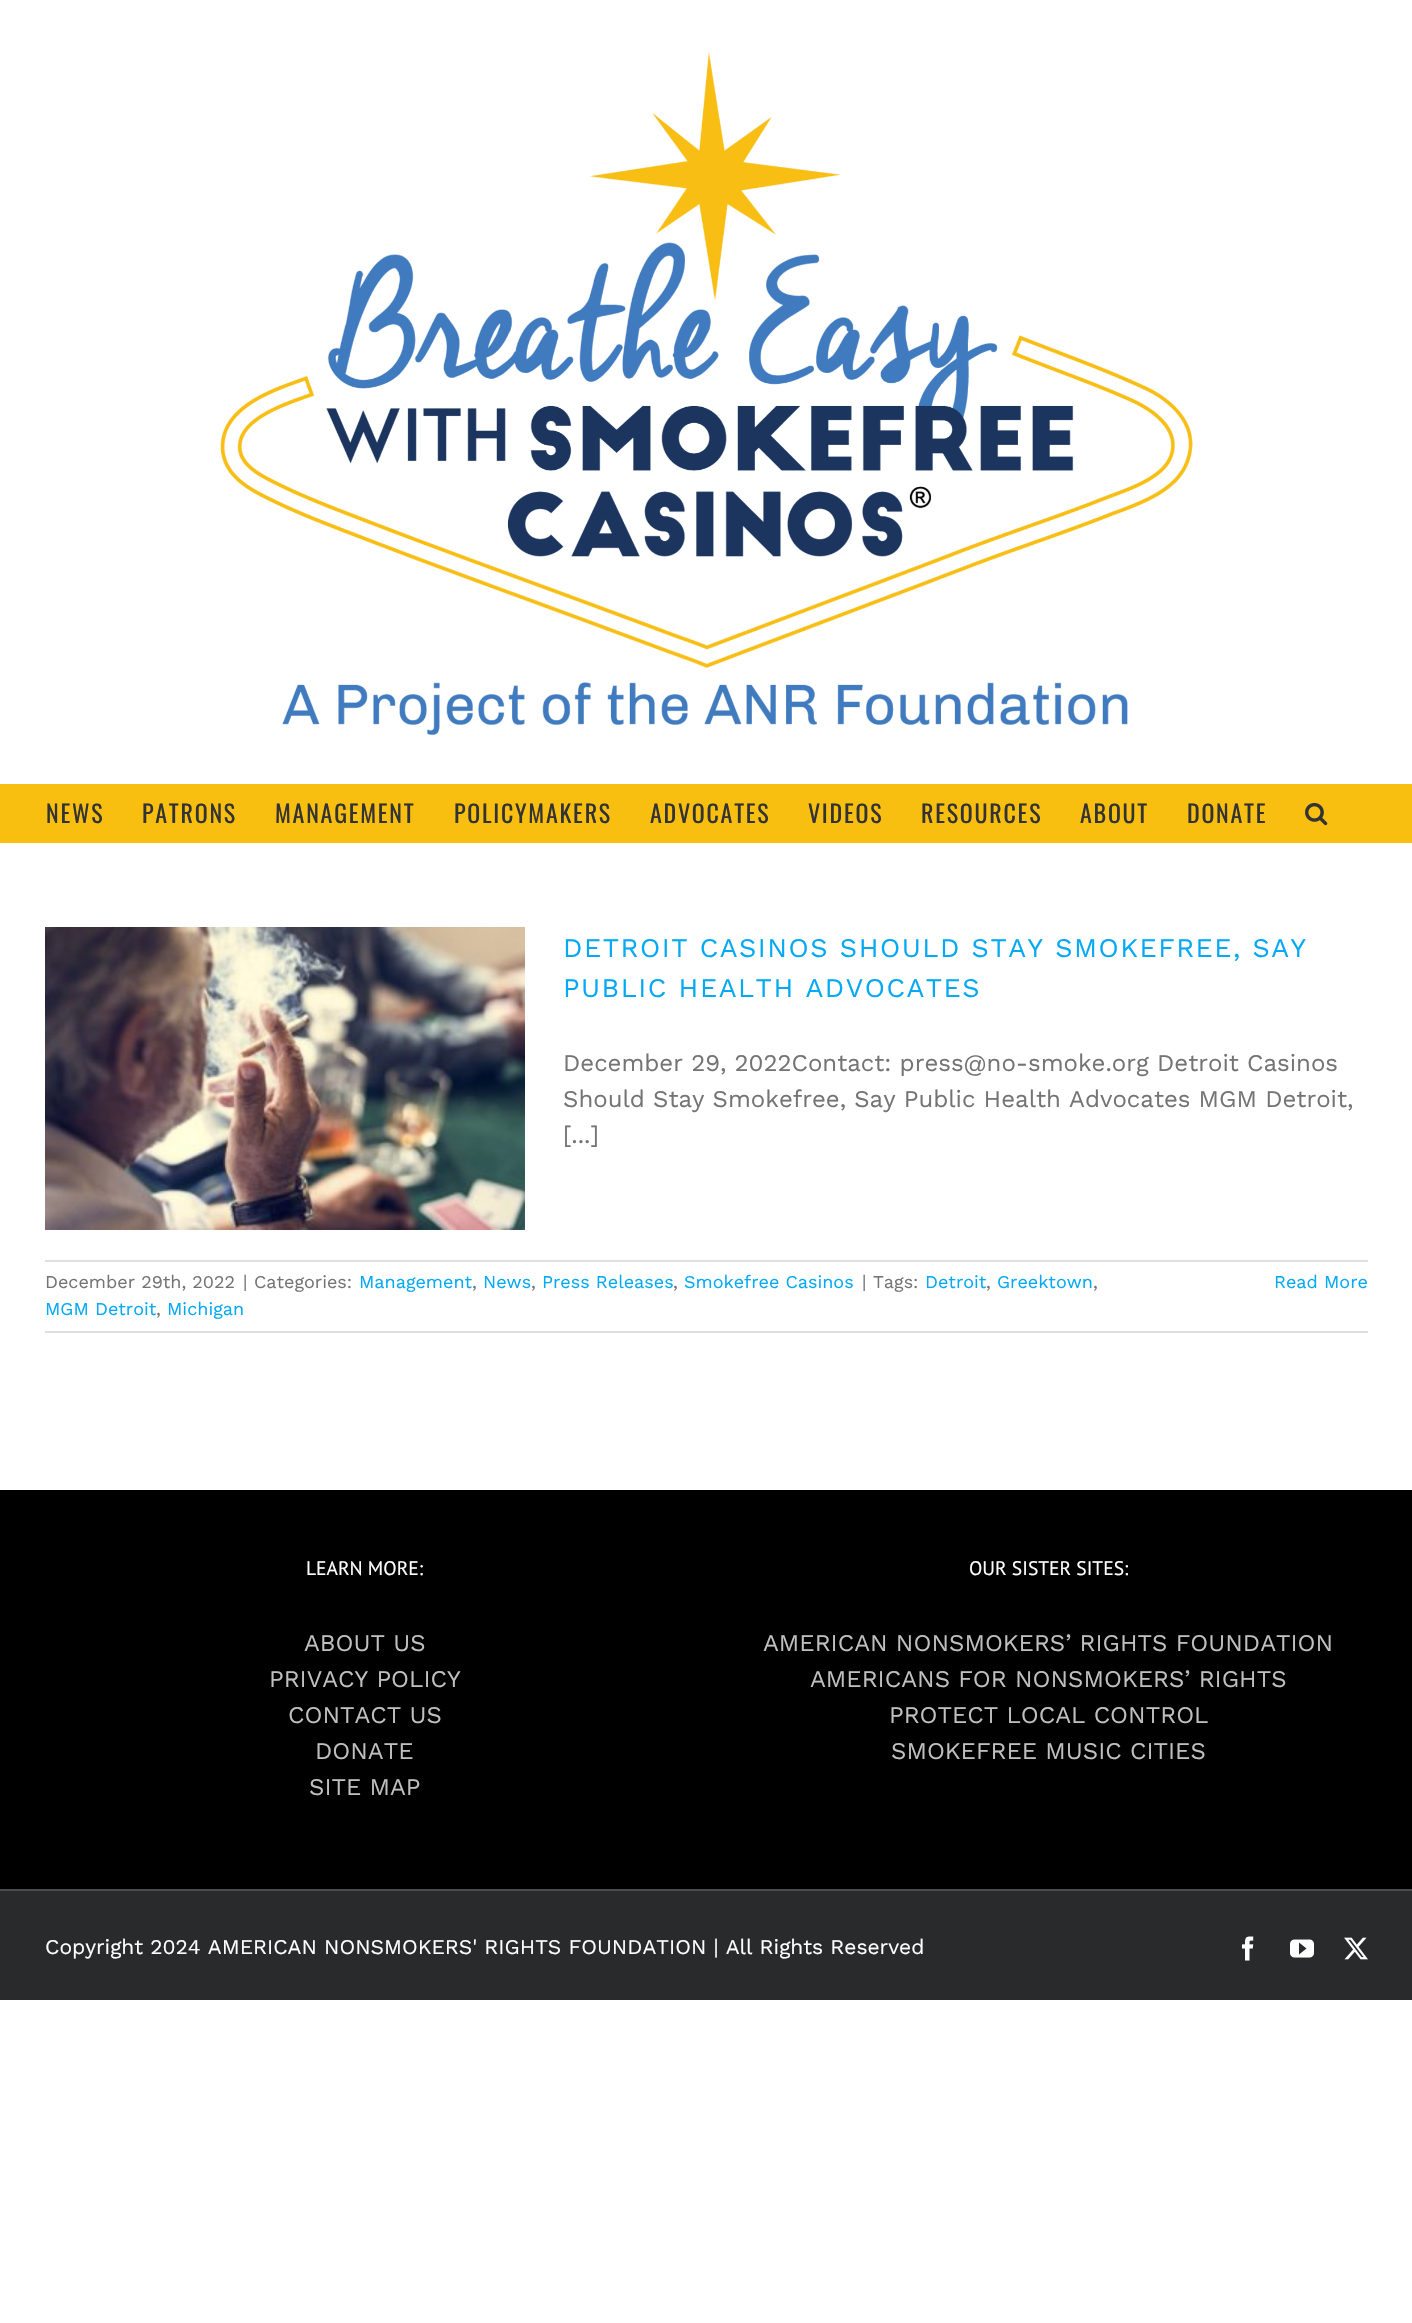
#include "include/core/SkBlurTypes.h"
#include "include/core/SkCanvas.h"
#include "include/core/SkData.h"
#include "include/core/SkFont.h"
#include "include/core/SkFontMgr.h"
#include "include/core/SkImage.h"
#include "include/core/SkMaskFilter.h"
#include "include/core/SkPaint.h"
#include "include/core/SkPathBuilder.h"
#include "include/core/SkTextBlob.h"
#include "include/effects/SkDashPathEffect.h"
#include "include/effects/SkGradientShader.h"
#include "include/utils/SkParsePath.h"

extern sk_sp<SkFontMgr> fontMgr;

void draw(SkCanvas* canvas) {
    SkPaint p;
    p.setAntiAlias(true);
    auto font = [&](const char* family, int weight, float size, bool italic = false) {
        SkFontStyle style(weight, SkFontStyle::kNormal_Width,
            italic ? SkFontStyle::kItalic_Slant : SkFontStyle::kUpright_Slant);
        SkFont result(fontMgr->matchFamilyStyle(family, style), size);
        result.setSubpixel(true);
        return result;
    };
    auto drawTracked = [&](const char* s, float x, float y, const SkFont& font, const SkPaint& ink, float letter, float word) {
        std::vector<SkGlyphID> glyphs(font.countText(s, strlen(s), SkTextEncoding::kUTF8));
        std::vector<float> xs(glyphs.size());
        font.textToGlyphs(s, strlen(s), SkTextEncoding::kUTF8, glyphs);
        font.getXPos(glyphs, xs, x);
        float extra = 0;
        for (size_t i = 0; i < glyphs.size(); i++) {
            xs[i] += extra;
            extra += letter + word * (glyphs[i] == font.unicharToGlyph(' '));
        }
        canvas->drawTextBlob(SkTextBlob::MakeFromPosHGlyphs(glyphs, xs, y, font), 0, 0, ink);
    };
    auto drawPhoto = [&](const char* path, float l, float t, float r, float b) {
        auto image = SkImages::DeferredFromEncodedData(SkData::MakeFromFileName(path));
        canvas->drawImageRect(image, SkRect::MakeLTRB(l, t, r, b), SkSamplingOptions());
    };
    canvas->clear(0xFFFFFFFF);
    drawPhoto("media/1.png", 220, 53, 1193, 735);
    p.setColor(0xFFF8BE10);
    canvas->drawRect(SkRect::MakeLTRB(0, 784, 1412, 843), p);
    auto font1 = font("Oswald", 400, 24);
    p.setColor(0xFF333333);
    {
        const struct { const char* s; float x, y; } items[] = {
            {"NEWS", 46, 823},
            {"PATRONS", 142, 823},
            {"MANAGEMENT", 275, 823},
            {"POLICYMAKERS", 454, 823},
            {"ADVOCATES", 650, 823},
            {"VIDEOS", 808, 823},
            {"RESOURCES", 921, 823},
            {"ABOUT", 1080, 823},
            {"DONATE", 1187, 823},
        };
        for (auto [s, x, y] : items) {
            drawTracked(s, x, y, font1, p, 1.75f, 0);
        }
    }
    drawPhoto("media/2.png", 1305, 802, 1328, 826);
    drawPhoto("media/3.png", 45, 927, 525, 1230);
    auto font2 = font("Work Sans", 400, 27);
    p.setColor(0xFF03A9F4);
    drawTracked("DETROIT CASINOS SHOULD STAY SMOKEFREE, SAY", 563, 957, font2, p, 1.5f, 0);
    drawTracked("PUBLIC HEALTH ADVOCATES", 563, 997, font2, p, 1.5f, 0);
    auto font3 = font("Work Sans", 400, 24);
    p.setColor(0xFF747474);
    {
        const struct { const char* s; float x, y; } items[] = {
            {"December 29, 2022Contact: press@no-smoke.org Detroit Casinos", 563, 1071},
            {"Should Stay Smokefree, Say Public Health Advocates MGM Detroit,", 563, 1107},
            {"[...]", 563, 1143},
        };
        for (auto [s, x, y] : items) {
            canvas->drawString(s, x, y, font3, p);
        }
    }
    p.setColor(0xFFE0DEDE);
    canvas->drawRect(SkRect::MakeLTRB(45, 1260, 1368, 1262), p);
    canvas->drawRect(SkRect::MakeLTRB(45, 1331, 1368, 1333), p);
    auto font4 = font("Work Sans", 400, 18);
    p.setColor(0xFF747474);
    {
        const struct { const char* s; float x, y; } items[] = {
            {"December 29th, 2022", 45, 1288},
            {"|", 243, 1288},
            {"Categories:", 254, 1288},
        };
        for (auto [s, x, y] : items) {
            canvas->drawString(s, x, y, font4, p);
        }
    }
    p.setColor(0xFF03A9F4);
    canvas->drawString("Management", 359, 1288, font4, p);
    p.setColor(0xFF747474);
    canvas->drawString(",", 472, 1288, font4, p);
    p.setColor(0xFF03A9F4);
    canvas->drawString("News", 483, 1288, font4, p);
    p.setColor(0xFF747474);
    canvas->drawString(",", 531, 1288, font4, p);
    p.setColor(0xFF03A9F4);
    canvas->drawString("Press Releases", 542, 1288, font4, p);
    p.setColor(0xFF747474);
    canvas->drawString(",", 673, 1288, font4, p);
    p.setColor(0xFF03A9F4);
    canvas->drawString("Smokefree Casinos", 684, 1288, font4, p);
    p.setColor(0xFF747474);
    canvas->drawString("|", 862, 1288, font4, p);
    canvas->drawString("Tags:", 873, 1288, font4, p);
    p.setColor(0xFF03A9F4);
    canvas->drawString("Detroit", 925, 1288, font4, p);
    p.setColor(0xFF747474);
    canvas->drawString(",", 986, 1288, font4, p);
    p.setColor(0xFF03A9F4);
    canvas->drawString("Greektown", 997, 1288, font4, p);
    p.setColor(0xFF747474);
    canvas->drawString(",", 1093, 1288, font4, p);
    p.setColor(0xFF03A9F4);
    canvas->drawString("MGM Detroit", 45, 1315, font4, p);
    p.setColor(0xFF747474);
    canvas->drawString(",", 156, 1315, font4, p);
    p.setColor(0xFF03A9F4);
    canvas->drawString("Michigan", 167, 1315, font4, p);
    canvas->drawString("Read More", 1274, 1288, font4, p);
    p.setColor(0xFF000000);
    canvas->drawRect(SkRect::MakeLTRB(0, 1490, 1412, 1889), p);
    auto font5 = font("PT Sans", 400, 19.5f);
    p.setColor(0xFFFFFFFF);
    canvas->drawString("LEARN MORE:", 306, 1575, font5, p);
    p.setColor(0xFFBFBFBF);
    {
        const struct { const char* s; float x, y; } items[] = {
            {"ABOUT US", 304, 1651},
            {"PRIVACY POLICY", 269, 1687},
            {"CONTACT US", 288, 1723},
            {"DONATE", 315, 1759},
            {"SITE MAP", 309, 1795},
        };
        for (auto [s, x, y] : items) {
            canvas->drawString(s, x, y, font3, p);
        }
    }
    p.setColor(0xFFFFFFFF);
    canvas->drawString("OUR SISTER SITES:", 969, 1575, font5, p);
    p.setColor(0xFFBFBFBF);
    {
        const struct { const char* s; float x, y; } items[] = {
            {"AMERICAN NONSMOKERS’ RIGHTS FOUNDATION", 763, 1651},
            {"AMERICANS FOR NONSMOKERS’ RIGHTS", 810, 1687},
            {"PROTECT LOCAL CONTROL", 889, 1723},
            {"SMOKEFREE MUSIC CITIES", 891, 1759},
        };
        for (auto [s, x, y] : items) {
            canvas->drawString(s, x, y, font3, p);
        }
    }
    p.setColor(0xFF282A2B);
    canvas->drawRect(SkRect::MakeLTRB(0, 1891, 1412, 2000), p);
    p.setColor(0xFF4B4C4D);
    canvas->drawRect(SkRect::MakeLTRB(0, 1889, 1412, 1891), p);
    auto font6 = font("Work Sans", 400, 21);
    p.setColor(0xFFFFFFFF);
    canvas->drawString("Copyright 2024 AMERICAN NONSMOKERS' RIGHTS FOUNDATION | All Rights Reserved", 45, 1954, font6, p);
    drawPhoto("media/4.png", 1242, 1936, 1254, 1961);
    drawPhoto("media/5.png", 1290, 1939, 1314, 1958);
    drawPhoto("media/6.png", 1344, 1937, 1368, 1960);
}
